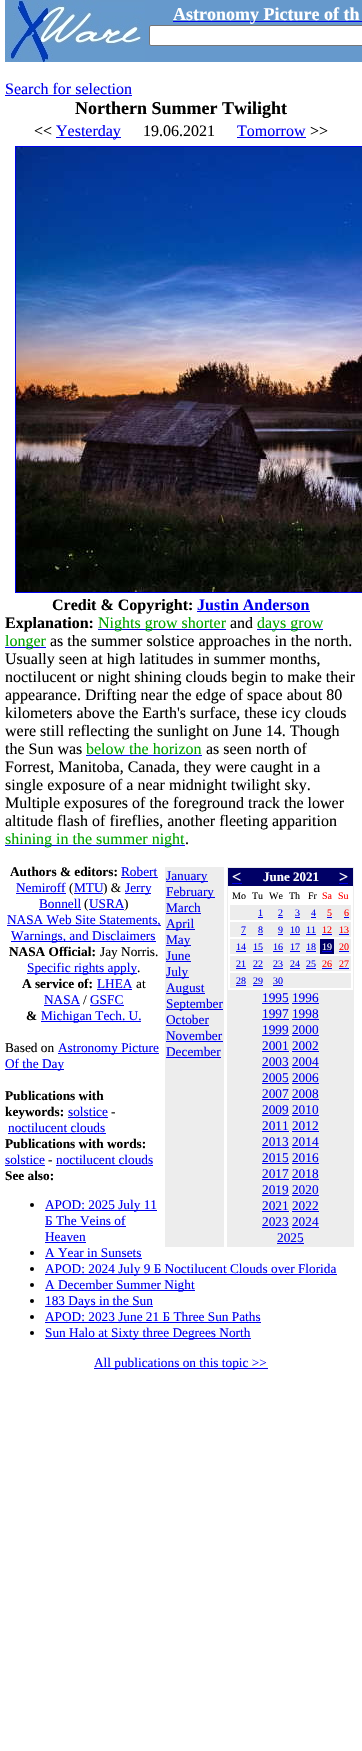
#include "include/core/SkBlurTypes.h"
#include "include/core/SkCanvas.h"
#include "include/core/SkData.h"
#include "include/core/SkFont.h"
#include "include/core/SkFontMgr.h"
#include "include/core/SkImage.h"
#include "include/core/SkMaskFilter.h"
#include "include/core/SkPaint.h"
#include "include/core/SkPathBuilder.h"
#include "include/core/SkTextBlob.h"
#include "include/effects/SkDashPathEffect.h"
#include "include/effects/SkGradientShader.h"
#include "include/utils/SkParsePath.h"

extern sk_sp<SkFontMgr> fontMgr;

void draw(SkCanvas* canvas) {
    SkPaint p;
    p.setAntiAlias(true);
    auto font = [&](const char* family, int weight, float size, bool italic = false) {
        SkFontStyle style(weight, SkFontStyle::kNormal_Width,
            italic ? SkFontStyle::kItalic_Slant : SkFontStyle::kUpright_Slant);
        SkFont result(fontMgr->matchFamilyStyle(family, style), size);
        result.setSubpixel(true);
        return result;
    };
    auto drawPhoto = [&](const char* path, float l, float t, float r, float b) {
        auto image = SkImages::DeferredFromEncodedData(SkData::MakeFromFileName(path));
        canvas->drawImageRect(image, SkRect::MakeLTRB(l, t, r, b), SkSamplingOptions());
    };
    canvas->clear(0xFFFFFFFF);
    p.setColor(0xFF6699CC);
    canvas->drawRect(SkRect::MakeLTRB(145, 0, 362, 62), p);
    drawPhoto("media/1.png", 5, 0, 145, 62);
    p.setColor(0xFF0000EE);
    canvas->drawRect(SkRect::MakeLTRB(173, 21, 362, 22), p);
    auto font1 = font("Liberation Serif", 700, 18);
    p.setColor(0xFFFFFFFF);
    canvas->drawString("Astronomy Picture of th", 173, 20, font1, p);
    canvas->drawRoundRect(SkRect::MakeLTRB(149.5f, 25.5f, 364.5f, 45.5f), 1.5f, 1.5f, p);
    p.setStyle(SkPaint::kStroke_Style);
    p.setStrokeWidth(1);
    p.setColor(0xFF767676);
    canvas->drawRoundRect(SkRect::MakeLTRB(149.5f, 25.5f, 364.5f, 45.5f), 1.5f, 1.5f, p);
    auto font2 = font("Liberation Serif", 400, 16);
    p.setStyle(SkPaint::kFill_Style);
    p.setColor(0xFF0000EE);
    canvas->drawString("Search for selection", 5, 94, font2, p);
    canvas->drawRect(SkRect::MakeLTRB(5, 95, 132, 96), p);
    p.setColor(0xFF000000);
    canvas->drawString("Northern Summer Twilight", 75, 114, font1, p);
    canvas->drawString("<<", 34, 136, font2, p);
    p.setColor(0xFF0000EE);
    canvas->drawRect(SkRect::MakeLTRB(56, 137, 121, 138), p);
    canvas->drawString("Yesterday", 56, 136, font2, p);
    p.setColor(0xFF000000);
    canvas->drawString("19.06.2021", 143, 136, font2, p);
    p.setColor(0xFF0000EE);
    canvas->drawString("Tomorrow", 237, 136, font2, p);
    canvas->drawRect(SkRect::MakeLTRB(237, 137, 306, 138), p);
    p.setColor(0xFF000000);
    canvas->drawString(">>", 310, 136, font2, p);
    p.setStyle(SkPaint::kStroke_Style);
    p.setColor(0xFF0000EE);
    canvas->drawRect(SkRect::MakeLTRB(15.5f, 146.5f, 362.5f, 592.5f), p);
    drawPhoto("media/2.png", 16, 147, 362, 592);
    auto font3 = font("Liberation Serif", 700, 16);
    p.setStyle(SkPaint::kFill_Style);
    p.setColor(0xFF000000);
    canvas->drawString("Credit & Copyright:", 52, 610, font3, p);
    p.setColor(0xFF0000EE);
    canvas->drawString("Justin Anderson", 197, 610, font3, p);
    canvas->drawRect(SkRect::MakeLTRB(197, 611, 310, 612), p);
    p.setColor(0xFF000000);
    canvas->drawString("Explanation:", 5, 628, font3, p);
    p.setColor(0xFF0000EE);
    canvas->drawRect(SkRect::MakeLTRB(98, 629, 226, 630), p);
    p.setColor(0xFF00A000);
    canvas->drawString("Nights grow shorter", 98, 628, font2, p);
    p.setColor(0xFF000000);
    canvas->drawString("and", 230, 628, font2, p);
    p.setColor(0xFF0000EE);
    canvas->drawRect(SkRect::MakeLTRB(257, 629, 323, 630), p);
    p.setColor(0xFF00A000);
    canvas->drawString("days grow", 257, 628, font2, p);
    p.setColor(0xFF0000EE);
    canvas->drawRect(SkRect::MakeLTRB(5, 647, 46, 648), p);
    p.setColor(0xFF00A000);
    canvas->drawString("longer", 5, 646, font2, p);
    p.setColor(0xFF000000);
    {
        const struct { const char* s; float x, y; } items[] = {
            {"as the summer solstice approaches in the north.", 50, 646},
            {"Usually seen at high latitudes in summer months,", 5, 664},
            {"noctilucent or night shining clouds begin to make their", 5, 682},
            {"appearance. Drifting near the edge of space about 80", 5, 700},
            {"kilometers above the Earth's surface, these icy clouds", 5, 718},
            {"were still reflecting the sunlight on June 14. Though", 5, 736},
            {"the Sun was", 5, 754},
        };
        for (auto [s, x, y] : items) {
            canvas->drawString(s, x, y, font2, p);
        }
    }
    p.setColor(0xFF00A000);
    canvas->drawString("below the horizon", 86, 754, font2, p);
    p.setColor(0xFF0000EE);
    canvas->drawRect(SkRect::MakeLTRB(86, 755, 202, 756), p);
    p.setColor(0xFF000000);
    {
        const struct { const char* s; float x, y; } items[] = {
            {"as seen north of", 206, 754},
            {"Forrest, Manitoba, Canada, they were caught in a", 5, 772},
            {"single exposure of a near midnight twilight sky.", 5, 790},
            {"Multiple exposures of the foreground track the lower", 5, 808},
            {"altitude flash of fireflies, another fleeting apparition", 5, 826},
        };
        for (auto [s, x, y] : items) {
            canvas->drawString(s, x, y, font2, p);
        }
    }
    p.setColor(0xFF0000EE);
    canvas->drawRect(SkRect::MakeLTRB(5, 845, 185, 846), p);
    p.setColor(0xFF00A000);
    canvas->drawString("shining in the summer night", 5, 844, font2, p);
    p.setColor(0xFF000000);
    canvas->drawString(".", 185, 844, font2, p);
    auto font4 = font("Liberation Serif", 700, 13.3f);
    canvas->drawString("Authors & editors:", 10, 876, font4, p);
    auto font5 = font("Liberation Serif", 400, 13.3f);
    p.setColor(0xFF0000EE);
    canvas->drawString("Robert", 121, 876, font5, p);
    {
        const struct { float l, t, r, b; SkColor color; } items[] = {
            {121, 877, 158, 878, 0xFF0000EE},
            {165, 867, 224, 1247, 0xFFEDEDED},
            {166, 881, 208, 882, 0xFF0000EE},
        };
        for (auto [l, t, r, b, color] : items) {
            p.setColor(color);
            canvas->drawRect(SkRect::MakeLTRB(l, t, r, b), p);
        }
    }
    canvas->drawString("January", 166, 880, font5, p);
    canvas->drawRect(SkRect::MakeLTRB(166, 897, 215, 898), p);
    canvas->drawString("February", 166, 896, font5, p);
    canvas->drawString("March", 166, 912, font5, p);
    canvas->drawRect(SkRect::MakeLTRB(166, 913, 201, 914), p);
    canvas->drawRect(SkRect::MakeLTRB(166, 929, 195, 930), p);
    canvas->drawString("April", 166, 928, font5, p);
    canvas->drawRect(SkRect::MakeLTRB(166, 945, 191, 946), p);
    canvas->drawString("May", 166, 944, font5, p);
    canvas->drawString("June", 166, 960, font5, p);
    canvas->drawRect(SkRect::MakeLTRB(166, 961, 191, 962), p);
    canvas->drawRect(SkRect::MakeLTRB(166, 977, 189, 978), p);
    canvas->drawString("July", 166, 976, font5, p);
    canvas->drawRect(SkRect::MakeLTRB(166, 993, 205, 994), p);
    canvas->drawString("August", 166, 992, font5, p);
    canvas->drawRect(SkRect::MakeLTRB(166, 1009, 223, 1010), p);
    canvas->drawString("September", 166, 1008, font5, p);
    canvas->drawString("October", 166, 1024, font5, p);
    canvas->drawRect(SkRect::MakeLTRB(166, 1025, 209, 1026), p);
    canvas->drawString("November", 166, 1040, font5, p);
    canvas->drawRect(SkRect::MakeLTRB(166, 1041, 223, 1042), p);
    canvas->drawString("December", 166, 1056, font5, p);
    {
        const struct { float l, t, r, b; SkColor color; } items[] = {
            {166, 1057, 221, 1058, 0xFF0000EE},
            {227, 867, 354, 1247, 0xFFEDEDED},
            {228, 868, 353, 886, 0xFF000066},
        };
        for (auto [l, t, r, b, color] : items) {
            p.setColor(color);
            canvas->drawRect(SkRect::MakeLTRB(l, t, r, b), p);
        }
    }
    p.setColor(0xFFFFFFFF);
    canvas->drawString("<", 232, 882, font3, p);
    p.setColor(0xFF0000EE);
    canvas->drawRect(SkRect::MakeLTRB(232, 883, 242, 884), p);
    auto font6 = font("Liberation Serif", 700, 13);
    p.setColor(0xFFFFFFFF);
    canvas->drawString("June 2021", 263, 881, font6, p);
    canvas->drawString(">", 339, 882, font3, p);
    p.setColor(0xFF0000EE);
    canvas->drawRect(SkRect::MakeLTRB(339, 883, 348, 884), p);
    p.setColor(0xFFFFFFFF);
    canvas->drawRect(SkRect::MakeLTRB(228, 886, 353, 990), p);
    auto font7 = font("Liberation Serif", 400, 10);
    p.setColor(0xFF000000);
    {
        const struct { const char* s; float x, y; } items[] = {
            {"Mo", 232, 899},
            {"Tu", 252, 899},
            {"We", 269, 899},
            {"Th", 289, 899},
            {"Fr", 308, 899},
        };
        for (auto [s, x, y] : items) {
            canvas->drawString(s, x, y, font7, p);
        }
    }
    p.setColor(0xFFFF0000);
    canvas->drawString("Sa", 322, 899, font7, p);
    canvas->drawString("Su", 338, 899, font7, p);
    p.setColor(0xFFEDEDED);
    canvas->drawRect(SkRect::MakeLTRB(230, 905, 351, 920), p);
    p.setColor(0xFF0000EE);
    canvas->drawString("1", 258, 916, font7, p);
    canvas->drawRect(SkRect::MakeLTRB(258, 917, 263, 918), p);
    canvas->drawString("2", 278, 916, font7, p);
    canvas->drawRect(SkRect::MakeLTRB(278, 917, 283, 918), p);
    canvas->drawString("3", 295, 916, font7, p);
    canvas->drawRect(SkRect::MakeLTRB(295, 917, 300, 918), p);
    canvas->drawString("4", 311, 916, font7, p);
    canvas->drawRect(SkRect::MakeLTRB(311, 917, 316, 918), p);
    p.setColor(0xFFFF0000);
    canvas->drawString("5", 327, 916, font7, p);
    p.setColor(0xFF0000EE);
    canvas->drawRect(SkRect::MakeLTRB(327, 917, 332, 918), p);
    p.setColor(0xFFFF0000);
    canvas->drawString("6", 344, 916, font7, p);
    p.setColor(0xFF0000EE);
    canvas->drawRect(SkRect::MakeLTRB(344, 917, 349, 918), p);
    p.setColor(0xFFEDEDED);
    canvas->drawRect(SkRect::MakeLTRB(230, 922, 351, 937), p);
    p.setColor(0xFF0000EE);
    canvas->drawString("7", 241, 933, font7, p);
    canvas->drawRect(SkRect::MakeLTRB(241, 934, 246, 935), p);
    canvas->drawString("8", 258, 933, font7, p);
    canvas->drawRect(SkRect::MakeLTRB(258, 934, 263, 935), p);
    canvas->drawString("9", 278, 933, font7, p);
    canvas->drawRect(SkRect::MakeLTRB(278, 934, 283, 935), p);
    canvas->drawString("10", 290, 933, font7, p);
    canvas->drawRect(SkRect::MakeLTRB(290, 934, 300, 935), p);
    canvas->drawString("11", 306, 933, font7, p);
    canvas->drawRect(SkRect::MakeLTRB(306, 934, 316, 935), p);
    p.setColor(0xFFFF0000);
    canvas->drawString("12", 322, 933, font7, p);
    p.setColor(0xFF0000EE);
    canvas->drawRect(SkRect::MakeLTRB(322, 934, 332, 935), p);
    p.setColor(0xFFFF0000);
    canvas->drawString("13", 339, 933, font7, p);
    p.setColor(0xFF0000EE);
    canvas->drawRect(SkRect::MakeLTRB(339, 934, 349, 935), p);
    p.setColor(0xFFEDEDED);
    canvas->drawRect(SkRect::MakeLTRB(230, 939, 351, 954), p);
    p.setColor(0xFF0000EE);
    canvas->drawString("14", 236, 950, font7, p);
    canvas->drawRect(SkRect::MakeLTRB(236, 951, 246, 952), p);
    canvas->drawString("15", 253, 950, font7, p);
    canvas->drawRect(SkRect::MakeLTRB(253, 951, 263, 952), p);
    canvas->drawString("16", 273, 950, font7, p);
    canvas->drawRect(SkRect::MakeLTRB(273, 951, 283, 952), p);
    canvas->drawString("17", 290, 950, font7, p);
    canvas->drawRect(SkRect::MakeLTRB(290, 951, 300, 952), p);
    canvas->drawString("18", 306, 950, font7, p);
    canvas->drawRect(SkRect::MakeLTRB(306, 951, 316, 952), p);
    p.setColor(0xFF000066);
    canvas->drawRect(SkRect::MakeLTRB(320, 939, 334, 954), p);
    p.setColor(0xFFFFFFFF);
    canvas->drawString("19", 322, 950, font7, p);
    p.setColor(0xFF0000EE);
    canvas->drawRect(SkRect::MakeLTRB(322, 951, 332, 952), p);
    p.setColor(0xFFFF0000);
    canvas->drawString("20", 339, 950, font7, p);
    p.setColor(0xFF0000EE);
    canvas->drawRect(SkRect::MakeLTRB(339, 951, 349, 952), p);
    p.setColor(0xFFEDEDED);
    canvas->drawRect(SkRect::MakeLTRB(230, 956, 351, 971), p);
    p.setColor(0xFF0000EE);
    canvas->drawString("21", 236, 967, font7, p);
    canvas->drawRect(SkRect::MakeLTRB(236, 968, 246, 969), p);
    canvas->drawString("22", 253, 967, font7, p);
    canvas->drawRect(SkRect::MakeLTRB(253, 968, 263, 969), p);
    canvas->drawString("23", 273, 967, font7, p);
    canvas->drawRect(SkRect::MakeLTRB(273, 968, 283, 969), p);
    canvas->drawString("24", 290, 967, font7, p);
    canvas->drawRect(SkRect::MakeLTRB(290, 968, 300, 969), p);
    canvas->drawString("25", 306, 967, font7, p);
    canvas->drawRect(SkRect::MakeLTRB(306, 968, 316, 969), p);
    p.setColor(0xFFFF0000);
    canvas->drawString("26", 322, 967, font7, p);
    p.setColor(0xFF0000EE);
    canvas->drawRect(SkRect::MakeLTRB(322, 968, 332, 969), p);
    p.setColor(0xFFFF0000);
    canvas->drawString("27", 339, 967, font7, p);
    p.setColor(0xFF0000EE);
    canvas->drawRect(SkRect::MakeLTRB(339, 968, 349, 969), p);
    p.setColor(0xFFEDEDED);
    canvas->drawRect(SkRect::MakeLTRB(230, 973, 351, 988), p);
    p.setColor(0xFF0000EE);
    canvas->drawString("28", 236, 984, font7, p);
    canvas->drawRect(SkRect::MakeLTRB(236, 985, 246, 986), p);
    canvas->drawString("29", 253, 984, font7, p);
    canvas->drawRect(SkRect::MakeLTRB(253, 985, 263, 986), p);
    canvas->drawString("30", 273, 984, font7, p);
    canvas->drawRect(SkRect::MakeLTRB(273, 985, 283, 986), p);
    canvas->drawString("1995 1996", 262, 1002, font5, p);
    canvas->drawRect(SkRect::MakeLTRB(262, 1003, 289, 1004), p);
    canvas->drawRect(SkRect::MakeLTRB(292, 1003, 319, 1004), p);
    canvas->drawString("1997 1998", 262, 1018, font5, p);
    canvas->drawRect(SkRect::MakeLTRB(262, 1019, 289, 1020), p);
    canvas->drawRect(SkRect::MakeLTRB(292, 1019, 319, 1020), p);
    canvas->drawString("1999 2000", 262, 1034, font5, p);
    canvas->drawRect(SkRect::MakeLTRB(262, 1035, 289, 1036), p);
    canvas->drawRect(SkRect::MakeLTRB(292, 1035, 319, 1036), p);
    canvas->drawString("2001 2002", 262, 1050, font5, p);
    canvas->drawRect(SkRect::MakeLTRB(262, 1051, 289, 1052), p);
    canvas->drawRect(SkRect::MakeLTRB(292, 1051, 319, 1052), p);
    canvas->drawString("2003 2004", 262, 1066, font5, p);
    canvas->drawRect(SkRect::MakeLTRB(262, 1067, 289, 1068), p);
    canvas->drawRect(SkRect::MakeLTRB(292, 1067, 319, 1068), p);
    canvas->drawString("2005 2006", 262, 1082, font5, p);
    canvas->drawRect(SkRect::MakeLTRB(262, 1083, 289, 1084), p);
    canvas->drawRect(SkRect::MakeLTRB(292, 1083, 319, 1084), p);
    canvas->drawString("2007 2008", 262, 1098, font5, p);
    canvas->drawRect(SkRect::MakeLTRB(262, 1099, 289, 1100), p);
    canvas->drawRect(SkRect::MakeLTRB(292, 1099, 319, 1100), p);
    canvas->drawString("2009 2010", 262, 1114, font5, p);
    canvas->drawRect(SkRect::MakeLTRB(262, 1115, 289, 1116), p);
    canvas->drawRect(SkRect::MakeLTRB(292, 1115, 319, 1116), p);
    canvas->drawString("2011 2012", 262, 1130, font5, p);
    canvas->drawRect(SkRect::MakeLTRB(262, 1131, 289, 1132), p);
    canvas->drawRect(SkRect::MakeLTRB(292, 1131, 319, 1132), p);
    canvas->drawString("2013 2014", 262, 1146, font5, p);
    canvas->drawRect(SkRect::MakeLTRB(262, 1147, 289, 1148), p);
    canvas->drawRect(SkRect::MakeLTRB(292, 1147, 319, 1148), p);
    canvas->drawString("2015 2016", 262, 1162, font5, p);
    canvas->drawRect(SkRect::MakeLTRB(262, 1163, 289, 1164), p);
    canvas->drawRect(SkRect::MakeLTRB(292, 1163, 319, 1164), p);
    canvas->drawString("2017 2018", 262, 1178, font5, p);
    canvas->drawRect(SkRect::MakeLTRB(262, 1179, 289, 1180), p);
    canvas->drawRect(SkRect::MakeLTRB(292, 1179, 319, 1180), p);
    canvas->drawString("2019 2020", 262, 1194, font5, p);
    canvas->drawRect(SkRect::MakeLTRB(262, 1195, 289, 1196), p);
    canvas->drawRect(SkRect::MakeLTRB(292, 1195, 319, 1196), p);
    canvas->drawString("2021 2022", 262, 1210, font5, p);
    canvas->drawRect(SkRect::MakeLTRB(262, 1211, 289, 1212), p);
    canvas->drawRect(SkRect::MakeLTRB(292, 1211, 319, 1212), p);
    canvas->drawString("2023 2024", 262, 1226, font5, p);
    canvas->drawRect(SkRect::MakeLTRB(262, 1227, 289, 1228), p);
    canvas->drawRect(SkRect::MakeLTRB(292, 1227, 319, 1228), p);
    canvas->drawString("2025", 277, 1242, font5, p);
    canvas->drawRect(SkRect::MakeLTRB(277, 1243, 304, 1244), p);
    canvas->drawString("Nemiroff", 16, 892, font5, p);
    canvas->drawRect(SkRect::MakeLTRB(16, 893, 66, 894), p);
    p.setColor(0xFF000000);
    canvas->drawString("(", 69, 892, font5, p);
    p.setColor(0xFF0000EE);
    canvas->drawRect(SkRect::MakeLTRB(74, 893, 103, 894), p);
    canvas->drawString("MTU", 74, 892, font5, p);
    p.setColor(0xFF000000);
    canvas->drawString(") &", 103, 892, font5, p);
    p.setColor(0xFF0000EE);
    canvas->drawRect(SkRect::MakeLTRB(125, 893, 151, 894), p);
    canvas->drawString("Jerry", 125, 892, font5, p);
    canvas->drawString("Bonnell", 39, 908, font5, p);
    canvas->drawRect(SkRect::MakeLTRB(39, 909, 81, 910), p);
    p.setColor(0xFF000000);
    canvas->drawString("(", 84, 908, font5, p);
    p.setColor(0xFF0000EE);
    canvas->drawRect(SkRect::MakeLTRB(89, 909, 124, 910), p);
    canvas->drawString("USRA", 89, 908, font5, p);
    p.setColor(0xFF000000);
    canvas->drawString(")", 124, 908, font5, p);
    p.setColor(0xFF0000EE);
    canvas->drawRect(SkRect::MakeLTRB(7, 925, 161, 926), p);
    canvas->drawString("NASA Web Site Statements,", 7, 924, font5, p);
    canvas->drawRect(SkRect::MakeLTRB(11, 941, 156, 942), p);
    canvas->drawString("Warnings, and Disclaimers", 11, 940, font5, p);
    p.setColor(0xFF000000);
    canvas->drawString("NASA Official:", 9, 956, font4, p);
    canvas->drawString("Jay Norris.", 100, 956, font5, p);
    p.setColor(0xFF0000EE);
    canvas->drawRect(SkRect::MakeLTRB(27, 973, 137, 974), p);
    canvas->drawString("Specific rights apply", 27, 972, font5, p);
    p.setColor(0xFF000000);
    canvas->drawString(".", 137, 972, font5, p);
    canvas->drawString("A service of:", 22, 988, font4, p);
    p.setColor(0xFF0000EE);
    canvas->drawString("LHEA", 97, 988, font5, p);
    canvas->drawRect(SkRect::MakeLTRB(97, 989, 132, 990), p);
    p.setColor(0xFF000000);
    canvas->drawString("at", 136, 988, font5, p);
    p.setColor(0xFF0000EE);
    canvas->drawString("NASA", 44, 1004, font5, p);
    canvas->drawRect(SkRect::MakeLTRB(44, 1005, 80, 1006), p);
    p.setColor(0xFF000000);
    canvas->drawString("/", 83, 1004, font5, p);
    p.setColor(0xFF0000EE);
    canvas->drawString("GSFC", 90, 1004, font5, p);
    canvas->drawRect(SkRect::MakeLTRB(90, 1005, 124, 1006), p);
    p.setColor(0xFF000000);
    canvas->drawString("&", 26, 1020, font4, p);
    p.setColor(0xFF0000EE);
    canvas->drawRect(SkRect::MakeLTRB(41, 1021, 141, 1022), p);
    canvas->drawString("Michigan Tech. U.", 41, 1020, font5, p);
    p.setColor(0xFF000000);
    canvas->drawString("Based on", 5, 1052, font5, p);
    p.setColor(0xFF0000EE);
    canvas->drawRect(SkRect::MakeLTRB(58, 1053, 159, 1054), p);
    canvas->drawString("Astronomy Picture", 58, 1052, font5, p);
    canvas->drawRect(SkRect::MakeLTRB(5, 1069, 64, 1070), p);
    canvas->drawString("Of the Day", 5, 1068, font5, p);
    p.setColor(0xFF000000);
    canvas->drawString("Publications with", 5, 1100, font4, p);
    canvas->drawString("keywords:", 5, 1116, font4, p);
    p.setColor(0xFF0000EE);
    canvas->drawString("solstice", 68, 1116, font5, p);
    canvas->drawRect(SkRect::MakeLTRB(68, 1117, 108, 1118), p);
    p.setColor(0xFF000000);
    canvas->drawString("-", 111, 1116, font5, p);
    p.setColor(0xFF0000EE);
    canvas->drawString("noctilucent clouds", 8, 1132, font5, p);
    canvas->drawRect(SkRect::MakeLTRB(8, 1133, 106, 1134), p);
    p.setColor(0xFF000000);
    canvas->drawString("Publications with words:", 5, 1148, font4, p);
    p.setColor(0xFF0000EE);
    canvas->drawString("solstice", 5, 1164, font5, p);
    canvas->drawRect(SkRect::MakeLTRB(5, 1165, 45, 1166), p);
    p.setColor(0xFF000000);
    canvas->drawString("-", 48, 1164, font5, p);
    p.setColor(0xFF0000EE);
    canvas->drawString("noctilucent clouds", 56, 1164, font5, p);
    canvas->drawRect(SkRect::MakeLTRB(56, 1165, 153, 1166), p);
    p.setColor(0xFF000000);
    canvas->drawString("See also:", 5, 1180, font4, p);
    canvas->drawCircle(32, 1205, 2, p);
    p.setColor(0xFF0000EE);
    canvas->drawRect(SkRect::MakeLTRB(45, 1210, 157, 1211), p);
    canvas->drawString("APOD: 2025 July 11", 45, 1209, font5, p);
    canvas->drawString("Б The Veins of", 45, 1225, font5, p);
    canvas->drawRect(SkRect::MakeLTRB(45, 1226, 126, 1227), p);
    canvas->drawString("Heaven", 45, 1241, font5, p);
    canvas->drawRect(SkRect::MakeLTRB(45, 1242, 86, 1243), p);
    p.setColor(0xFF000000);
    canvas->drawCircle(32, 1253, 2, p);
    p.setColor(0xFF0000EE);
    canvas->drawString("A Year in Sunsets", 45, 1257, font5, p);
    canvas->drawRect(SkRect::MakeLTRB(45, 1258, 142, 1259), p);
    p.setColor(0xFF000000);
    canvas->drawCircle(32, 1269, 2, p);
    p.setColor(0xFF0000EE);
    canvas->drawRect(SkRect::MakeLTRB(45, 1274, 337, 1275), p);
    canvas->drawString("APOD: 2024 July 9 Б Noctilucent Clouds over Florida", 45, 1273, font5, p);
    p.setColor(0xFF000000);
    canvas->drawCircle(32, 1285, 2, p);
    p.setColor(0xFF0000EE);
    canvas->drawRect(SkRect::MakeLTRB(45, 1290, 195, 1291), p);
    canvas->drawString("A December Summer Night", 45, 1289, font5, p);
    p.setColor(0xFF000000);
    canvas->drawCircle(32, 1301, 2, p);
    p.setColor(0xFF0000EE);
    canvas->drawRect(SkRect::MakeLTRB(45, 1306, 153, 1307), p);
    canvas->drawString("183 Days in the Sun", 45, 1305, font5, p);
    p.setColor(0xFF000000);
    canvas->drawCircle(32, 1317, 2, p);
    p.setColor(0xFF0000EE);
    canvas->drawString("APOD: 2023 June 21 Б Three Sun Paths", 45, 1321, font5, p);
    canvas->drawRect(SkRect::MakeLTRB(45, 1322, 261, 1323), p);
    p.setColor(0xFF000000);
    canvas->drawCircle(32, 1333, 2, p);
    p.setColor(0xFF0000EE);
    canvas->drawRect(SkRect::MakeLTRB(45, 1338, 251, 1339), p);
    canvas->drawString("Sun Halo at Sixty three Degrees North", 45, 1337, font5, p);
    canvas->drawRect(SkRect::MakeLTRB(94, 1368, 268, 1369), p);
    canvas->drawString("All publications on this topic >>", 94, 1367, font5, p);
}
